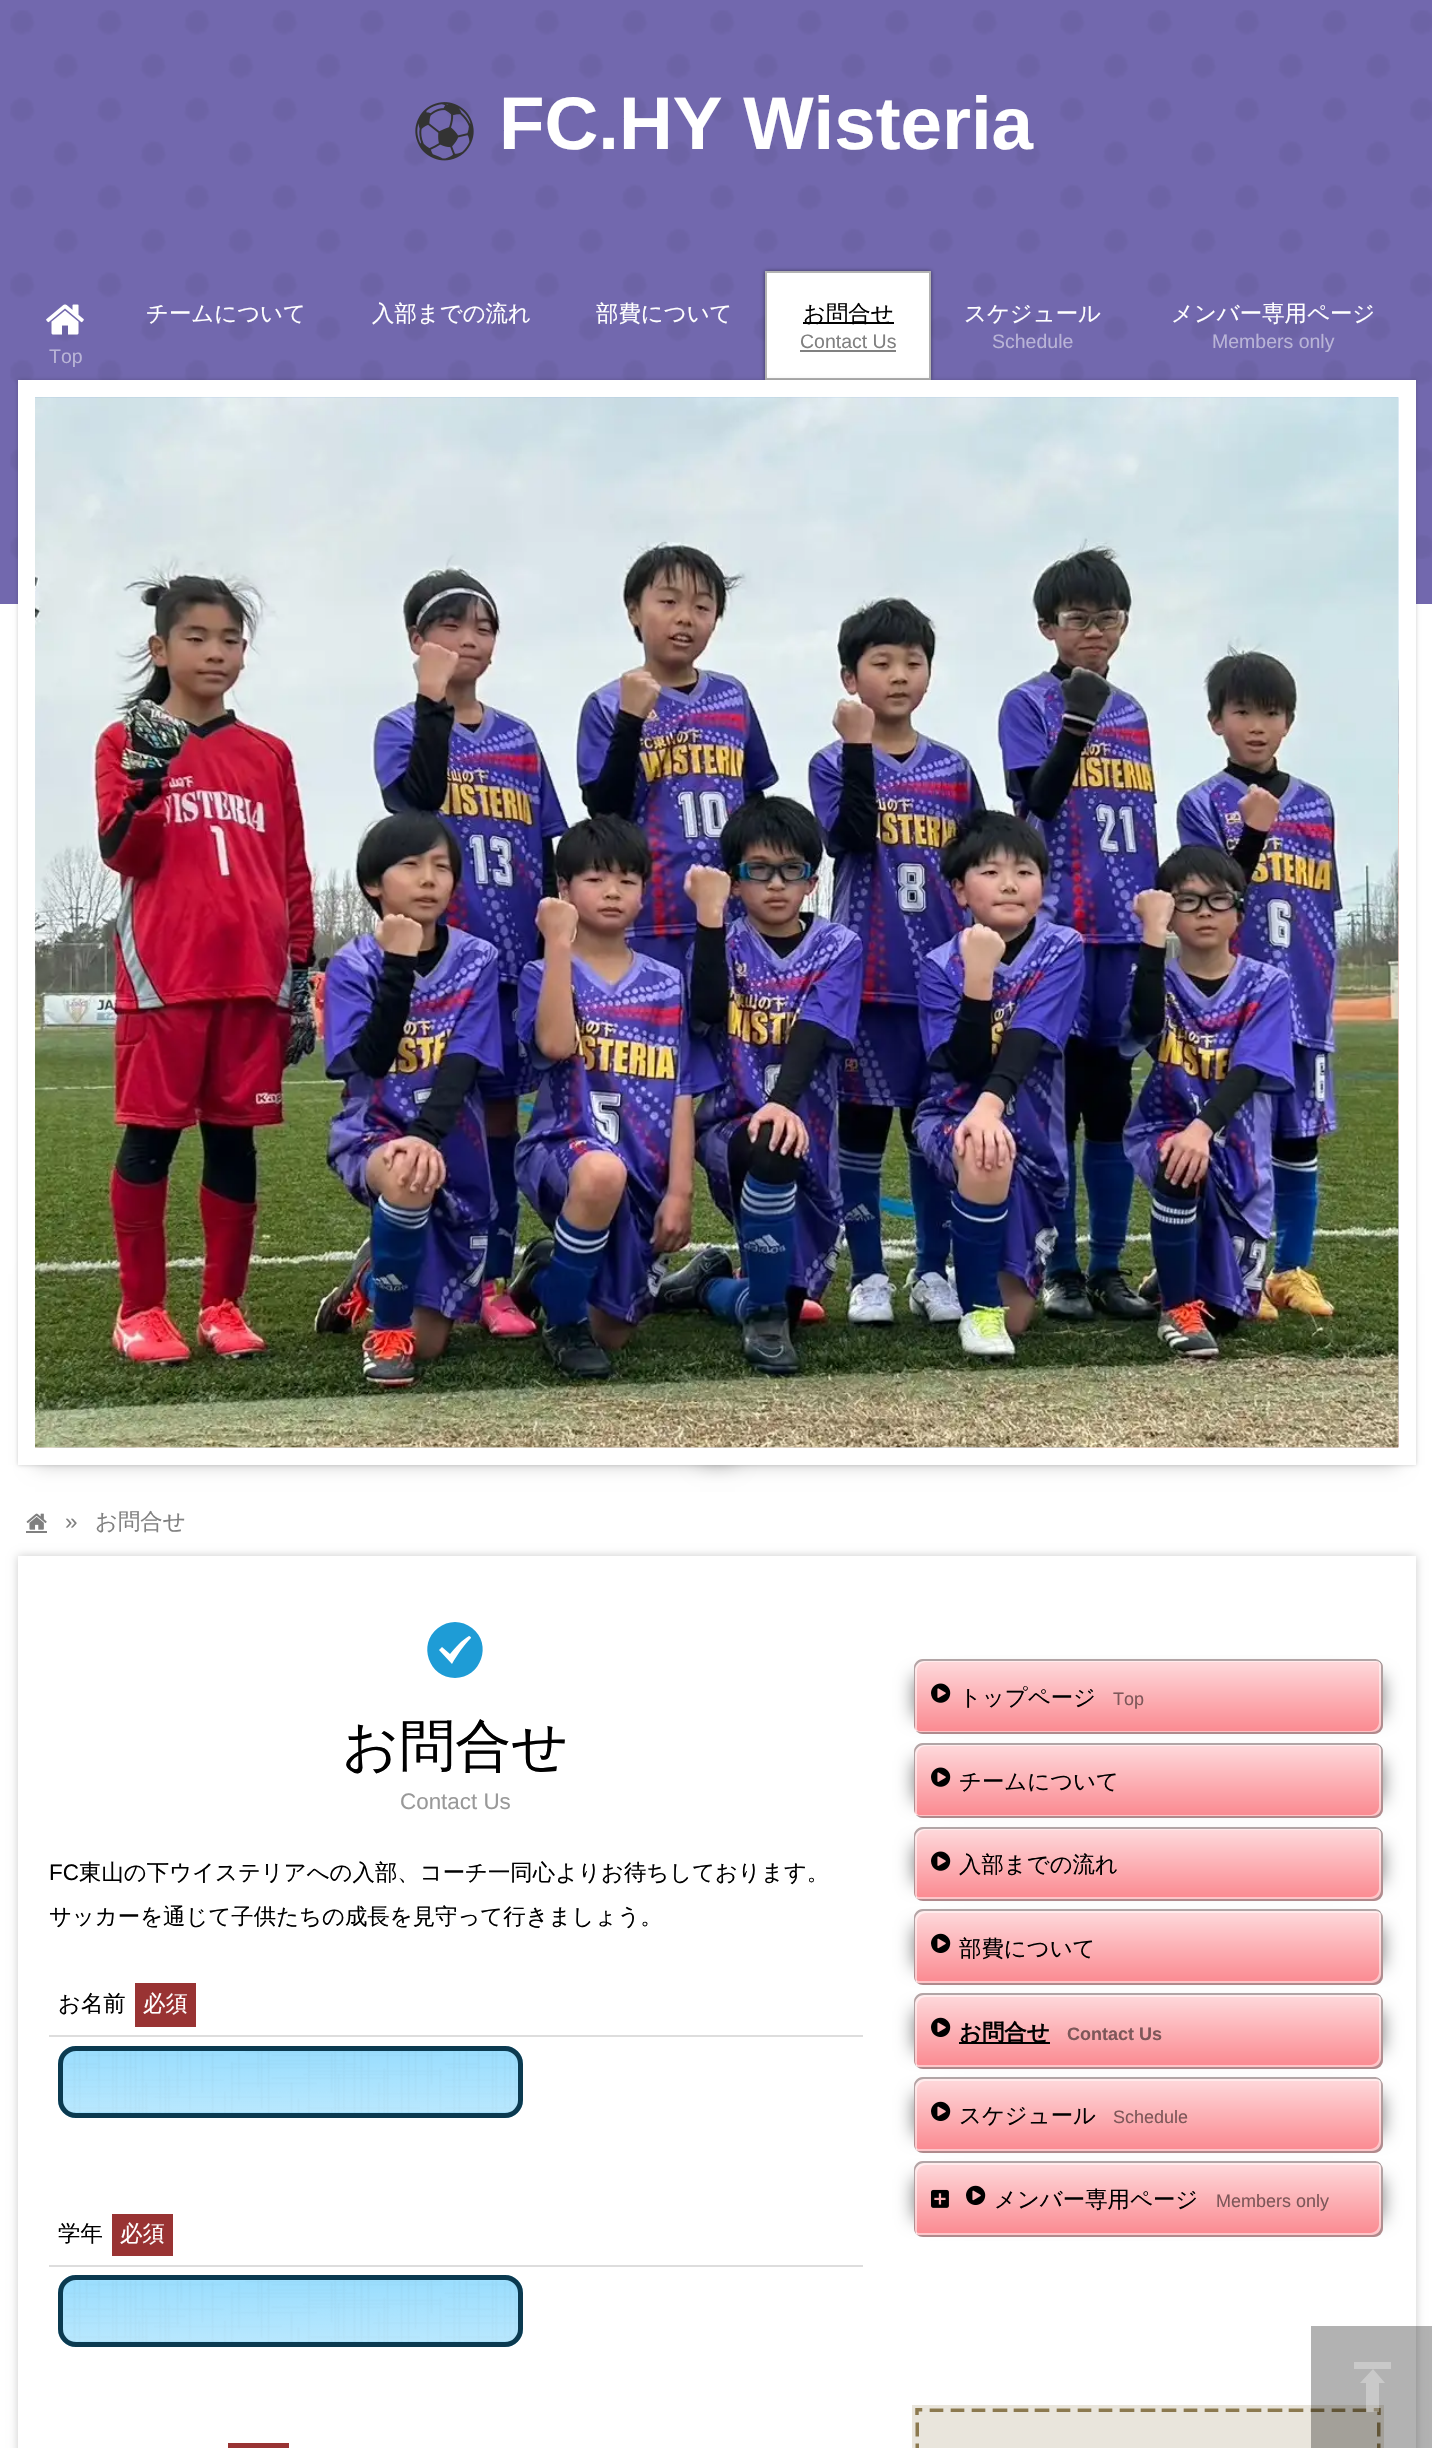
#include "include/core/SkBlurTypes.h"
#include "include/core/SkCanvas.h"
#include "include/core/SkData.h"
#include "include/core/SkFont.h"
#include "include/core/SkFontMgr.h"
#include "include/core/SkImage.h"
#include "include/core/SkMaskFilter.h"
#include "include/core/SkPaint.h"
#include "include/core/SkPathBuilder.h"
#include "include/core/SkTextBlob.h"
#include "include/effects/SkDashPathEffect.h"
#include "include/effects/SkGradientShader.h"
#include "include/utils/SkParsePath.h"

extern sk_sp<SkFontMgr> fontMgr;

void draw(SkCanvas* canvas) {
    SkPaint p;
    p.setAntiAlias(true);
    auto font = [&](const char* family, int weight, float size, bool italic = false) {
        SkFontStyle style(weight, SkFontStyle::kNormal_Width,
            italic ? SkFontStyle::kItalic_Slant : SkFontStyle::kUpright_Slant);
        SkFont result(fontMgr->matchFamilyStyle(family, style), size);
        result.setSubpixel(true);
        return result;
    };
    auto drawPhoto = [&](const char* path, float l, float t, float r, float b) {
        auto image = SkImages::DeferredFromEncodedData(SkData::MakeFromFileName(path));
        canvas->drawImageRect(image, SkRect::MakeLTRB(l, t, r, b), SkSamplingOptions());
    };
    canvas->clear(0xFFFFFFFF);
    p.setColor(0xFF7268AE);
    canvas->drawRect(SkRect::MakeLTRB(0, 0, 1432, 604), p);
    drawPhoto("media/1.png", 10, 10, 1432, 559);
    drawPhoto("media/2.png", 415, 102, 474, 161);
    auto font1 = font("Liberation Sans", 700, 74.5f);
    p.setColor(0xFFFFFFFF);
    canvas->drawString("FC.HY Wisteria", 499, 149, font1, p);
    auto font2 = font("WenQuanYi Zen Hei", 500, 22.4f);
    {
        const struct { const char* s; float x, y; } items[] = {
            {"チームについて", 146, 321},
            {"入部までの流れ", 372, 321},
            {"部費について", 596, 321},
        };
        for (auto [s, x, y] : items) {
            canvas->drawString(s, x, y, font2, p);
        }
    }
    p.setColor(0x80000000);
    p.setMaskFilter(SkMaskFilter::MakeBlur(kNormal_SkBlurStyle, 2));
    canvas->drawRect(SkRect::MakeLTRB(765, 271, 931, 380), p);
    p.setMaskFilter(nullptr);
    p.setColor(0xFFFFFFFF);
    canvas->drawRect(SkRect::MakeLTRB(766, 272, 930, 379), p);
    p.setStyle(SkPaint::kStroke_Style);
    p.setStrokeWidth(2);
    p.setColor(0xFFB3B3B3);
    canvas->drawRect(SkRect::MakeLTRB(766, 272, 930, 379), p);
    p.setStyle(SkPaint::kFill_Style);
    p.setColor(0xFF000000);
    canvas->drawRect(SkRect::MakeLTRB(803, 322, 894, 324), p);
    canvas->drawString("お問合せ", 803, 321, font2, p);
    auto font3 = font("Liberation Sans", 400, 19.5f);
    p.setColor(0xFF808080);
    canvas->drawString("Contact Us", 800, 348, font3, p);
    canvas->drawRect(SkRect::MakeLTRB(800, 350, 896, 352), p);
    p.setColor(0xFFFFFFFF);
    canvas->drawString("スケジュール", 964, 321, font2, p);
    p.setColor(0xFFB9B4D7);
    canvas->drawString("Schedule", 992, 348, font3, p);
    p.setColor(0xFFFFFFFF);
    canvas->drawString("メンバー専用ページ", 1171, 321, font2, p);
    p.setColor(0xFFB9B4D7);
    canvas->drawString("Members only", 1212, 348, font3, p);
    drawPhoto("media/3.png", 46, 304, 84, 335);
    canvas->drawString("Top", 49, 363, font3, p);
    p.setColor(0x33000000);
    p.setMaskFilter(SkMaskFilter::MakeBlur(kNormal_SkBlurStyle, 2));
    canvas->drawRect(SkRect::MakeLTRB(18, 380, 1416, 1465), p);
    p.setMaskFilter(nullptr);
    p.setMaskFilter(SkMaskFilter::MakeBlur(kNormal_SkBlurStyle, 9));
    canvas->drawRect(SkRect::MakeLTRB(35, 1274, 735, 1465), p);
    p.setMaskFilter(nullptr);
    p.setMaskFilter(SkMaskFilter::MakeBlur(kNormal_SkBlurStyle, 9));
    canvas->drawRect(SkRect::MakeLTRB(700, 1274, 1398, 1465), p);
    p.setMaskFilter(nullptr);
    p.setColor(0xFFFFFFFF);
    canvas->drawRect(SkRect::MakeLTRB(18, 380, 1416, 1465), p);
    drawPhoto("media/4.png", 35, 397, 1399, 1448);
    drawPhoto("media/5.png", 26, 1513, 47, 1530);
    auto font4 = font("Liberation Sans", 400, 22.4f);
    p.setColor(0xFF808080);
    canvas->drawString("»", 65, 1529, font4, p);
    canvas->drawRect(SkRect::MakeLTRB(26, 1531, 47, 1533), p);
    canvas->drawString("お問合せ", 95, 1529, font2, p);
    p.setColor(0x33000000);
    p.setMaskFilter(SkMaskFilter::MakeBlur(kNormal_SkBlurStyle, 4.5f));
    canvas->drawRect(SkRect::MakeLTRB(18, 1556, 1416, 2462), p);
    p.setMaskFilter(nullptr);
    p.setColor(0xFFFFFFFF);
    canvas->drawRect(SkRect::MakeLTRB(18, 1556, 1416, 2448), p);
    p.setColor(0xFF1E9CD6);
    canvas->drawPath(SkPathBuilder().moveTo(455, 1622).cubicTo(461, 1622, 467, 1624, 472, 1628).cubicTo(493, 1644, 481, 1678, 455, 1678).cubicTo(429, 1678, 417, 1644, 438, 1628).cubicTo(443, 1624, 449, 1622, 455, 1622).close().moveTo(442, 1647).lineTo(439, 1650).lineTo(452, 1664).cubicTo(457, 1655, 464, 1645, 471, 1638).cubicTo(471, 1637, 470, 1636, 469, 1636).cubicTo(462, 1640, 455, 1648, 450, 1654).close().detach(), p);
    auto font5 = font("WenQuanYi Zen Hei", 500, 56);
    p.setColor(0xFF000000);
    canvas->drawString("お問合せ", 342, 1765, font5, p);
    p.setColor(0xFF999999);
    canvas->drawString("Contact Us", 400, 1809, font4, p);
    p.setColor(0xFF000000);
    canvas->drawString("FC", 49, 1880, font4, p);
    canvas->drawString("東山の下ウイステリアへの入部、コーチ一同心よりお待ちしております。", 79, 1880, font2, p);
    canvas->drawString("サッカーを通じて子供たちの成長を見守って行きましょう。", 49, 1924, font2, p);
    p.setColor(0xFFDDDDDD);
    canvas->drawRect(SkRect::MakeLTRB(49, 2035, 863, 2037), p);
    p.setColor(0xFF000000);
    canvas->drawString("お名前", 58, 2011, font2, p);
    p.setColor(0xFF993333);
    canvas->drawRect(SkRect::MakeLTRB(135, 1983, 196, 2027), p);
    p.setColor(0xFFFFFFFF);
    canvas->drawString("必須", 143, 2011, font2, p);
    p.setColor(0xFF9ADEFE);
    canvas->drawRoundRect(SkRect::MakeLTRB(58, 2046, 523, 2118), 18, 18, p);
    drawPhoto("media/6.png", 58, 2046, 523, 2117);
    p.setStyle(SkPaint::kStroke_Style);
    p.setStrokeWidth(5);
    p.setColor(0xFF0B3A50);
    canvas->drawRoundRect(SkRect::MakeLTRB(60.5f, 2048.5f, 520.5f, 2115.5f), 15.5f, 15.5f, p);
    p.setStyle(SkPaint::kFill_Style);
    p.setColor(0xFFDDDDDD);
    canvas->drawRect(SkRect::MakeLTRB(49, 2265, 863, 2267), p);
    p.setColor(0xFF000000);
    canvas->drawString("学年", 58, 2241, font2, p);
    p.setColor(0xFF993333);
    canvas->drawRect(SkRect::MakeLTRB(112, 2214, 173, 2256), p);
    p.setColor(0xFFFFFFFF);
    canvas->drawString("必須", 120, 2241, font2, p);
    p.setColor(0xFF9ADEFE);
    canvas->drawRoundRect(SkRect::MakeLTRB(58, 2275, 523, 2347), 18, 18, p);
    drawPhoto("media/7.png", 58, 2275, 523, 2347);
    p.setStyle(SkPaint::kStroke_Style);
    p.setColor(0xFF0B3A50);
    canvas->drawRoundRect(SkRect::MakeLTRB(60.5f, 2277.5f, 520.5f, 2344.5f), 15.5f, 15.5f, p);
    p.setStyle(SkPaint::kFill_Style);
    p.setColor(0xFF993333);
    canvas->drawRect(SkRect::MakeLTRB(228, 2443, 289, 2448), p);
    p.setColor(0x80000000);
    p.setMaskFilter(SkMaskFilter::MakeBlur(kNormal_SkBlurStyle, 9));
    canvas->drawRect(SkRect::MakeLTRB(914, 1677, 1348, 1717), p);
    p.setMaskFilter(nullptr);
    p.setMaskFilter(SkMaskFilter::MakeBlur(kNormal_SkBlurStyle, 9));
    canvas->drawRect(SkRect::MakeLTRB(949, 1677, 1383, 1717), p);
    p.setMaskFilter(nullptr);
    p.setColor(0xFFFB878E);
    canvas->drawRoundRect(SkRect::MakeLTRB(914, 1659, 1383, 1734), 9, 9, p);
    {
        const SkColor colors[] = {0xB3FFFFFF, 0x00FFFFFF};
        const float stops[] = {0, 1};
        const SkPoint ends[] = {{1148, 1659}, {1148, 1734}};
        p.setShader(SkGradientShader::MakeLinear(ends, colors, stops, 2, SkTileMode::kClamp));
        p.setAlpha(255);
    }
    canvas->drawRoundRect(SkRect::MakeLTRB(914, 1659, 1383, 1734), 9, 9, p);
    p.setShader(nullptr);
    p.setColor(0x80FFFFFF);
    canvas->drawPath(SkPathBuilder().moveTo(916, 1730).cubicTo(917, 1733, 920, 1734, 923, 1734).lineTo(1374, 1734).cubicTo(1379, 1734, 1383, 1730, 1383, 1725).lineTo(1383, 1668).cubicTo(1383, 1664, 1381, 1661, 1378, 1660).cubicTo(1379, 1661, 1379, 1662, 1379, 1664).lineTo(1379, 1722).cubicTo(1379, 1727, 1375, 1731, 1370, 1731).lineTo(919, 1731).close().detach(), p);
    canvas->drawPath(SkPathBuilder().moveTo(926, 1662).lineTo(1377, 1662).lineTo(1382, 1663).cubicTo(1380, 1661, 1377, 1659, 1374, 1659).lineTo(923, 1659).cubicTo(918, 1659, 914, 1663, 914, 1668).lineTo(914, 1725).cubicTo(914, 1728, 915, 1731, 918, 1732).lineTo(917, 1729).lineTo(917, 1671).cubicTo(917, 1666, 921, 1662, 926, 1662).close().detach(), p);
    p.setColor(0x4D000000);
    canvas->drawPath(SkPathBuilder().moveTo(916, 1731).cubicTo(918, 1733, 920, 1734, 923, 1734).lineTo(1374, 1734).cubicTo(1379, 1734, 1383, 1730, 1383, 1725).lineTo(1383, 1668).cubicTo(1383, 1665, 1382, 1662, 1379, 1661).cubicTo(1380, 1662, 1381, 1664, 1381, 1666).lineTo(1381, 1724).cubicTo(1381, 1729, 1377, 1732, 1372, 1732).lineTo(920, 1732).close().detach(), p);
    canvas->drawPath(SkPathBuilder().moveTo(924, 1661).lineTo(1376, 1661).cubicTo(1378, 1661, 1381, 1662, 1382, 1665).cubicTo(1381, 1661, 1378, 1659, 1374, 1659).lineTo(923, 1659).cubicTo(918, 1659, 914, 1663, 914, 1668).lineTo(914, 1725).cubicTo(914, 1727, 915, 1729, 915, 1730).lineTo(915, 1727).lineTo(915, 1670).cubicTo(915, 1665, 919, 1661, 924, 1661).close().detach(), p);
    drawPhoto("media/8.png", 931, 1683, 951, 1703);
    p.setColor(0xFF000000);
    canvas->drawString("トップページ", 959, 1705, font2, p);
    auto font6 = font("Liberation Sans", 400, 18);
    p.setColor(0xFF7E5759);
    canvas->drawString("Top", 1113, 1705, font6, p);
    p.setColor(0x80000000);
    p.setMaskFilter(SkMaskFilter::MakeBlur(kNormal_SkBlurStyle, 9));
    canvas->drawRect(SkRect::MakeLTRB(914, 1761, 1348, 1801), p);
    p.setMaskFilter(nullptr);
    p.setMaskFilter(SkMaskFilter::MakeBlur(kNormal_SkBlurStyle, 9));
    canvas->drawRect(SkRect::MakeLTRB(949, 1761, 1383, 1801), p);
    p.setMaskFilter(nullptr);
    p.setColor(0xFFFB878E);
    canvas->drawRoundRect(SkRect::MakeLTRB(914, 1743, 1383, 1818), 9, 9, p);
    {
        const SkColor colors[] = {0xB3FFFFFF, 0x00FFFFFF};
        const float stops[] = {0, 1};
        const SkPoint ends[] = {{1148, 1743}, {1148, 1818}};
        p.setShader(SkGradientShader::MakeLinear(ends, colors, stops, 2, SkTileMode::kClamp));
        p.setAlpha(255);
    }
    canvas->drawRoundRect(SkRect::MakeLTRB(914, 1743, 1383, 1818), 9, 9, p);
    p.setShader(nullptr);
    p.setColor(0x80FFFFFF);
    canvas->drawPath(SkPathBuilder().moveTo(916, 1814).cubicTo(917, 1817, 920, 1818, 923, 1818).lineTo(1374, 1818).cubicTo(1379, 1818, 1383, 1814, 1383, 1809).lineTo(1383, 1752).cubicTo(1383, 1748, 1381, 1745, 1378, 1744).cubicTo(1379, 1745, 1379, 1746, 1379, 1748).lineTo(1379, 1806).cubicTo(1379, 1811, 1375, 1815, 1370, 1815).lineTo(919, 1815).close().detach(), p);
    canvas->drawPath(SkPathBuilder().moveTo(926, 1746).lineTo(1377, 1746).lineTo(1382, 1747).cubicTo(1380, 1745, 1377, 1743, 1374, 1743).lineTo(923, 1743).cubicTo(918, 1743, 914, 1747, 914, 1752).lineTo(914, 1809).cubicTo(914, 1812, 915, 1815, 918, 1816).lineTo(917, 1813).lineTo(917, 1755).cubicTo(917, 1750, 921, 1746, 926, 1746).close().detach(), p);
    p.setColor(0x4D000000);
    canvas->drawPath(SkPathBuilder().moveTo(916, 1815).cubicTo(918, 1817, 920, 1818, 923, 1818).lineTo(1374, 1818).cubicTo(1379, 1818, 1383, 1814, 1383, 1809).lineTo(1383, 1752).cubicTo(1383, 1749, 1382, 1746, 1379, 1745).cubicTo(1380, 1746, 1381, 1748, 1381, 1750).lineTo(1381, 1808).cubicTo(1381, 1813, 1377, 1816, 1372, 1816).lineTo(920, 1816).close().detach(), p);
    canvas->drawPath(SkPathBuilder().moveTo(924, 1745).lineTo(1376, 1745).cubicTo(1378, 1745, 1381, 1746, 1382, 1749).cubicTo(1381, 1745, 1378, 1743, 1374, 1743).lineTo(923, 1743).cubicTo(918, 1743, 914, 1747, 914, 1752).lineTo(914, 1809).cubicTo(914, 1811, 915, 1813, 915, 1814).lineTo(915, 1811).lineTo(915, 1754).cubicTo(915, 1749, 919, 1745, 924, 1745).close().detach(), p);
    drawPhoto("media/8.png", 931, 1767, 951, 1787);
    p.setColor(0xFF000000);
    canvas->drawString("チームについて", 959, 1789, font2, p);
    p.setColor(0x80000000);
    p.setMaskFilter(SkMaskFilter::MakeBlur(kNormal_SkBlurStyle, 9));
    canvas->drawRect(SkRect::MakeLTRB(914, 1845, 1348, 1883), p);
    p.setMaskFilter(nullptr);
    p.setMaskFilter(SkMaskFilter::MakeBlur(kNormal_SkBlurStyle, 9));
    canvas->drawRect(SkRect::MakeLTRB(949, 1845, 1383, 1883), p);
    p.setMaskFilter(nullptr);
    p.setColor(0xFFFB878E);
    canvas->drawRoundRect(SkRect::MakeLTRB(914, 1827, 1383, 1901), 9, 9, p);
    {
        const SkColor colors[] = {0xB3FFFFFF, 0x00FFFFFF};
        const float stops[] = {0, 1};
        const SkPoint ends[] = {{1148, 1827}, {1148, 1901}};
        p.setShader(SkGradientShader::MakeLinear(ends, colors, stops, 2, SkTileMode::kClamp));
        p.setAlpha(255);
    }
    canvas->drawRoundRect(SkRect::MakeLTRB(914, 1827, 1383, 1901), 9, 9, p);
    p.setShader(nullptr);
    p.setColor(0x80FFFFFF);
    canvas->drawPath(SkPathBuilder().moveTo(915, 1896).cubicTo(916, 1899, 919, 1901, 923, 1901).lineTo(1374, 1901).cubicTo(1379, 1901, 1383, 1897, 1383, 1892).lineTo(1383, 1836).cubicTo(1383, 1832, 1381, 1829, 1378, 1828).cubicTo(1379, 1829, 1379, 1830, 1379, 1832).lineTo(1379, 1888).cubicTo(1379, 1893, 1375, 1897, 1370, 1897).lineTo(919, 1897).close().detach(), p);
    canvas->drawPath(SkPathBuilder().moveTo(926, 1830).lineTo(1377, 1830).lineTo(1382, 1831).cubicTo(1380, 1829, 1377, 1827, 1374, 1827).lineTo(923, 1827).cubicTo(918, 1827, 914, 1831, 914, 1836).lineTo(914, 1892).cubicTo(914, 1895, 916, 1898, 918, 1900).cubicTo(917, 1898, 917, 1897, 917, 1895).lineTo(917, 1839).cubicTo(917, 1834, 921, 1830, 926, 1830).close().detach(), p);
    p.setColor(0x4D000000);
    canvas->drawPath(SkPathBuilder().moveTo(916, 1898).cubicTo(918, 1900, 920, 1901, 923, 1901).lineTo(1374, 1901).cubicTo(1379, 1901, 1383, 1897, 1383, 1892).lineTo(1383, 1836).cubicTo(1383, 1833, 1382, 1830, 1379, 1829).cubicTo(1380, 1830, 1381, 1832, 1381, 1834).lineTo(1381, 1890).cubicTo(1381, 1895, 1377, 1899, 1372, 1899).lineTo(920, 1899).cubicTo(919, 1899, 917, 1899, 916, 1898).close().detach(), p);
    canvas->drawPath(SkPathBuilder().moveTo(924, 1829).lineTo(1376, 1829).cubicTo(1378, 1829, 1381, 1830, 1382, 1833).cubicTo(1381, 1829, 1378, 1827, 1374, 1827).lineTo(923, 1827).cubicTo(918, 1827, 914, 1831, 914, 1836).lineTo(914, 1892).cubicTo(914, 1894, 915, 1897, 916, 1898).cubicTo(916, 1897, 915, 1895, 915, 1894).lineTo(915, 1838).cubicTo(915, 1833, 919, 1829, 924, 1829).close().detach(), p);
    drawPhoto("media/9.png", 931, 1851, 951, 1871);
    p.setColor(0xFF000000);
    canvas->drawString("入部までの流れ", 959, 1872, font2, p);
    p.setColor(0x80000000);
    p.setMaskFilter(SkMaskFilter::MakeBlur(kNormal_SkBlurStyle, 9));
    canvas->drawRect(SkRect::MakeLTRB(914, 1927, 1348, 1967), p);
    p.setMaskFilter(nullptr);
    p.setMaskFilter(SkMaskFilter::MakeBlur(kNormal_SkBlurStyle, 9));
    canvas->drawRect(SkRect::MakeLTRB(949, 1927, 1383, 1967), p);
    p.setMaskFilter(nullptr);
    p.setColor(0xFFFB878E);
    canvas->drawRoundRect(SkRect::MakeLTRB(914, 1909, 1383, 1985), 9, 9, p);
    {
        const SkColor colors[] = {0xB3FFFFFF, 0x00FFFFFF};
        const float stops[] = {0, 1};
        const SkPoint ends[] = {{1148, 1909}, {1148, 1985}};
        p.setShader(SkGradientShader::MakeLinear(ends, colors, stops, 2, SkTileMode::kClamp));
        p.setAlpha(255);
    }
    canvas->drawRoundRect(SkRect::MakeLTRB(914, 1909, 1383, 1985), 9, 9, p);
    p.setShader(nullptr);
    p.setColor(0x80FFFFFF);
    canvas->drawPath(SkPathBuilder().moveTo(915, 1980).cubicTo(916, 1983, 919, 1985, 923, 1985).lineTo(1374, 1985).cubicTo(1379, 1985, 1383, 1981, 1383, 1976).lineTo(1383, 1918).cubicTo(1383, 1914, 1381, 1911, 1377, 1910).cubicTo(1378, 1911, 1379, 1912, 1379, 1914).lineTo(1379, 1972).cubicTo(1379, 1977, 1375, 1981, 1370, 1981).lineTo(919, 1981).close().detach(), p);
    canvas->drawPath(SkPathBuilder().moveTo(926, 1913).lineTo(1377, 1913).cubicTo(1379, 1913, 1381, 1914, 1382, 1915).cubicTo(1381, 1911, 1378, 1909, 1374, 1909).lineTo(923, 1909).cubicTo(918, 1909, 914, 1913, 914, 1918).lineTo(914, 1976).cubicTo(914, 1979, 916, 1982, 918, 1984).cubicTo(917, 1982, 917, 1981, 917, 1979).lineTo(917, 1922).cubicTo(917, 1917, 921, 1913, 926, 1913).close().detach(), p);
    p.setColor(0x4D000000);
    canvas->drawPath(SkPathBuilder().moveTo(916, 1982).cubicTo(918, 1984, 920, 1985, 923, 1985).lineTo(1374, 1985).cubicTo(1379, 1985, 1383, 1981, 1383, 1976).lineTo(1383, 1918).cubicTo(1383, 1915, 1381, 1912, 1378, 1910).cubicTo(1380, 1912, 1381, 1914, 1381, 1916).lineTo(1381, 1974).cubicTo(1381, 1979, 1377, 1983, 1372, 1983).lineTo(920, 1983).cubicTo(919, 1983, 917, 1983, 916, 1982).close().detach(), p);
    canvas->drawPath(SkPathBuilder().moveTo(924, 1911).lineTo(1376, 1911).cubicTo(1378, 1911, 1381, 1912, 1382, 1915).cubicTo(1381, 1911, 1378, 1909, 1374, 1909).lineTo(923, 1909).cubicTo(918, 1909, 914, 1913, 914, 1918).lineTo(914, 1976).cubicTo(914, 1978, 915, 1981, 916, 1982).cubicTo(916, 1981, 915, 1979, 915, 1978).lineTo(915, 1920).cubicTo(915, 1915, 919, 1911, 924, 1911).close().detach(), p);
    drawPhoto("media/10.png", 931, 1933, 951, 1953);
    p.setColor(0xFF000000);
    canvas->drawString("部費について", 959, 1956, font2, p);
    p.setColor(0x80000000);
    p.setMaskFilter(SkMaskFilter::MakeBlur(kNormal_SkBlurStyle, 9));
    canvas->drawRect(SkRect::MakeLTRB(914, 2011, 1348, 2051), p);
    p.setMaskFilter(nullptr);
    p.setMaskFilter(SkMaskFilter::MakeBlur(kNormal_SkBlurStyle, 9));
    canvas->drawRect(SkRect::MakeLTRB(949, 2011, 1383, 2051), p);
    p.setMaskFilter(nullptr);
    p.setColor(0xFFFB878E);
    canvas->drawRoundRect(SkRect::MakeLTRB(914, 1993, 1383, 2069), 9, 9, p);
    {
        const SkColor colors[] = {0xB3FFFFFF, 0x00FFFFFF};
        const float stops[] = {0, 1};
        const SkPoint ends[] = {{1148, 1993}, {1148, 2069}};
        p.setShader(SkGradientShader::MakeLinear(ends, colors, stops, 2, SkTileMode::kClamp));
        p.setAlpha(255);
    }
    canvas->drawRoundRect(SkRect::MakeLTRB(914, 1993, 1383, 2069), 9, 9, p);
    p.setShader(nullptr);
    p.setColor(0x80FFFFFF);
    canvas->drawPath(SkPathBuilder().moveTo(915, 2064).cubicTo(916, 2067, 919, 2069, 923, 2069).lineTo(1374, 2069).cubicTo(1379, 2069, 1383, 2065, 1383, 2060).lineTo(1383, 2002).cubicTo(1383, 1998, 1381, 1995, 1377, 1994).cubicTo(1378, 1995, 1379, 1996, 1379, 1998).lineTo(1379, 2056).cubicTo(1379, 2061, 1375, 2065, 1370, 2065).lineTo(919, 2065).close().detach(), p);
    canvas->drawPath(SkPathBuilder().moveTo(926, 1997).lineTo(1377, 1997).cubicTo(1379, 1997, 1381, 1998, 1382, 1999).cubicTo(1381, 1995, 1378, 1993, 1374, 1993).lineTo(923, 1993).cubicTo(918, 1993, 914, 1997, 914, 2002).lineTo(914, 2060).cubicTo(914, 2063, 916, 2066, 918, 2068).cubicTo(917, 2066, 917, 2065, 917, 2063).lineTo(917, 2006).cubicTo(917, 2001, 921, 1997, 926, 1997).close().detach(), p);
    p.setColor(0x4D000000);
    canvas->drawPath(SkPathBuilder().moveTo(916, 2066).cubicTo(918, 2068, 920, 2069, 923, 2069).lineTo(1374, 2069).cubicTo(1379, 2069, 1383, 2065, 1383, 2060).lineTo(1383, 2002).cubicTo(1383, 1999, 1381, 1996, 1378, 1994).cubicTo(1380, 1996, 1381, 1998, 1381, 2000).lineTo(1381, 2058).cubicTo(1381, 2063, 1377, 2067, 1372, 2067).lineTo(920, 2067).cubicTo(919, 2067, 917, 2067, 916, 2066).close().detach(), p);
    canvas->drawPath(SkPathBuilder().moveTo(924, 1995).lineTo(1376, 1995).cubicTo(1378, 1995, 1381, 1996, 1382, 1999).cubicTo(1381, 1995, 1378, 1993, 1374, 1993).lineTo(923, 1993).cubicTo(918, 1993, 914, 1997, 914, 2002).lineTo(914, 2060).cubicTo(914, 2062, 915, 2065, 916, 2066).cubicTo(916, 2065, 915, 2063, 915, 2062).lineTo(915, 2004).cubicTo(915, 1999, 919, 1995, 924, 1995).close().detach(), p);
    drawPhoto("media/10.png", 931, 2017, 951, 2037);
    p.setColor(0xFF000000);
    canvas->drawRect(SkRect::MakeLTRB(959, 2042, 1050, 2044), p);
    auto font7 = font("WenQuanYi Zen Hei", 700, 22.4f);
    canvas->drawString("お問合せ", 959, 2040, font7, p);
    auto font8 = font("Liberation Sans", 700, 18);
    p.setColor(0xFF7E5759);
    canvas->drawString("Contact Us", 1067, 2040, font8, p);
    p.setColor(0x80000000);
    p.setMaskFilter(SkMaskFilter::MakeBlur(kNormal_SkBlurStyle, 9));
    canvas->drawRect(SkRect::MakeLTRB(914, 2095, 1348, 2135), p);
    p.setMaskFilter(nullptr);
    p.setMaskFilter(SkMaskFilter::MakeBlur(kNormal_SkBlurStyle, 9));
    canvas->drawRect(SkRect::MakeLTRB(949, 2095, 1383, 2135), p);
    p.setMaskFilter(nullptr);
    p.setColor(0xFFFB878E);
    canvas->drawRoundRect(SkRect::MakeLTRB(914, 2077, 1383, 2153), 9, 9, p);
    {
        const SkColor colors[] = {0xB3FFFFFF, 0x00FFFFFF};
        const float stops[] = {0, 1};
        const SkPoint ends[] = {{1148, 2077}, {1148, 2153}};
        p.setShader(SkGradientShader::MakeLinear(ends, colors, stops, 2, SkTileMode::kClamp));
        p.setAlpha(255);
    }
    canvas->drawRoundRect(SkRect::MakeLTRB(914, 2077, 1383, 2153), 9, 9, p);
    p.setShader(nullptr);
    p.setColor(0x80FFFFFF);
    canvas->drawPath(SkPathBuilder().moveTo(915, 2148).cubicTo(916, 2151, 919, 2153, 923, 2153).lineTo(1374, 2153).cubicTo(1379, 2153, 1383, 2149, 1383, 2144).lineTo(1383, 2086).cubicTo(1383, 2082, 1381, 2079, 1377, 2078).cubicTo(1378, 2079, 1379, 2080, 1379, 2082).lineTo(1379, 2140).cubicTo(1379, 2145, 1375, 2149, 1370, 2149).lineTo(919, 2149).close().detach(), p);
    canvas->drawPath(SkPathBuilder().moveTo(926, 2081).lineTo(1377, 2081).cubicTo(1379, 2081, 1381, 2082, 1382, 2083).cubicTo(1381, 2079, 1378, 2077, 1374, 2077).lineTo(923, 2077).cubicTo(918, 2077, 914, 2081, 914, 2086).lineTo(914, 2144).cubicTo(914, 2147, 916, 2150, 918, 2152).cubicTo(917, 2150, 917, 2149, 917, 2147).lineTo(917, 2090).cubicTo(917, 2085, 921, 2081, 926, 2081).close().detach(), p);
    p.setColor(0x4D000000);
    canvas->drawPath(SkPathBuilder().moveTo(916, 2150).cubicTo(918, 2152, 920, 2153, 923, 2153).lineTo(1374, 2153).cubicTo(1379, 2153, 1383, 2149, 1383, 2144).lineTo(1383, 2086).cubicTo(1383, 2083, 1381, 2080, 1378, 2078).cubicTo(1380, 2080, 1381, 2082, 1381, 2084).lineTo(1381, 2142).cubicTo(1381, 2147, 1377, 2151, 1372, 2151).lineTo(920, 2151).cubicTo(919, 2151, 917, 2151, 916, 2150).close().detach(), p);
    canvas->drawPath(SkPathBuilder().moveTo(924, 2079).lineTo(1376, 2079).cubicTo(1378, 2079, 1381, 2080, 1382, 2083).cubicTo(1381, 2079, 1378, 2077, 1374, 2077).lineTo(923, 2077).cubicTo(918, 2077, 914, 2081, 914, 2086).lineTo(914, 2144).cubicTo(914, 2146, 915, 2149, 916, 2150).cubicTo(916, 2149, 915, 2147, 915, 2146).lineTo(915, 2088).cubicTo(915, 2083, 919, 2079, 924, 2079).close().detach(), p);
    drawPhoto("media/10.png", 931, 2101, 951, 2121);
    p.setColor(0xFF000000);
    canvas->drawString("スケジュール", 959, 2123, font2, p);
    p.setColor(0xFF7E5759);
    canvas->drawString("Schedule", 1113, 2123, font6, p);
    p.setColor(0x80000000);
    p.setMaskFilter(SkMaskFilter::MakeBlur(kNormal_SkBlurStyle, 9));
    canvas->drawRect(SkRect::MakeLTRB(914, 2179, 1348, 2219), p);
    p.setMaskFilter(nullptr);
    p.setMaskFilter(SkMaskFilter::MakeBlur(kNormal_SkBlurStyle, 9));
    canvas->drawRect(SkRect::MakeLTRB(949, 2179, 1383, 2219), p);
    p.setMaskFilter(nullptr);
    p.setColor(0xFFFB878E);
    canvas->drawRoundRect(SkRect::MakeLTRB(914, 2161, 1383, 2237), 9, 9, p);
    {
        const SkColor colors[] = {0xB3FFFFFF, 0x00FFFFFF};
        const float stops[] = {0, 1};
        const SkPoint ends[] = {{1148, 2161}, {1148, 2237}};
        p.setShader(SkGradientShader::MakeLinear(ends, colors, stops, 2, SkTileMode::kClamp));
        p.setAlpha(255);
    }
    canvas->drawRoundRect(SkRect::MakeLTRB(914, 2161, 1383, 2237), 9, 9, p);
    p.setShader(nullptr);
    p.setColor(0x80FFFFFF);
    canvas->drawPath(SkPathBuilder().moveTo(915, 2232).cubicTo(916, 2235, 919, 2237, 923, 2237).lineTo(1374, 2237).cubicTo(1379, 2237, 1383, 2233, 1383, 2228).lineTo(1383, 2170).cubicTo(1383, 2166, 1381, 2163, 1377, 2162).cubicTo(1378, 2163, 1379, 2164, 1379, 2166).lineTo(1379, 2224).cubicTo(1379, 2229, 1375, 2233, 1370, 2233).lineTo(919, 2233).close().detach(), p);
    canvas->drawPath(SkPathBuilder().moveTo(926, 2165).lineTo(1377, 2165).cubicTo(1379, 2165, 1381, 2166, 1382, 2167).cubicTo(1381, 2163, 1378, 2161, 1374, 2161).lineTo(923, 2161).cubicTo(918, 2161, 914, 2165, 914, 2170).lineTo(914, 2228).cubicTo(914, 2231, 916, 2234, 918, 2236).cubicTo(917, 2234, 917, 2233, 917, 2231).lineTo(917, 2174).cubicTo(917, 2169, 921, 2165, 926, 2165).close().detach(), p);
    p.setColor(0x4D000000);
    canvas->drawPath(SkPathBuilder().moveTo(916, 2234).cubicTo(918, 2236, 920, 2237, 923, 2237).lineTo(1374, 2237).cubicTo(1379, 2237, 1383, 2233, 1383, 2228).lineTo(1383, 2170).cubicTo(1383, 2167, 1381, 2164, 1378, 2162).cubicTo(1380, 2164, 1381, 2166, 1381, 2168).lineTo(1381, 2226).cubicTo(1381, 2231, 1377, 2235, 1372, 2235).lineTo(920, 2235).cubicTo(919, 2235, 917, 2235, 916, 2234).close().detach(), p);
    canvas->drawPath(SkPathBuilder().moveTo(924, 2163).lineTo(1376, 2163).cubicTo(1378, 2163, 1381, 2164, 1382, 2167).cubicTo(1381, 2163, 1378, 2161, 1374, 2161).lineTo(923, 2161).cubicTo(918, 2161, 914, 2165, 914, 2170).lineTo(914, 2228).cubicTo(914, 2230, 915, 2233, 916, 2234).cubicTo(916, 2233, 915, 2231, 915, 2230).lineTo(915, 2172).cubicTo(915, 2167, 919, 2163, 924, 2163).close().detach(), p);
    drawPhoto("media/11.png", 931, 2189, 949, 2208);
    drawPhoto("media/10.png", 966, 2185, 986, 2205);
    p.setColor(0xFF000000);
    canvas->drawString("メンバー専用ページ", 994, 2207, font2, p);
    p.setColor(0xFF7E5759);
    canvas->drawString("Members only", 1216, 2207, font6, p);
    p.setColor(0xFFE9E5DC);
    canvas->drawRect(SkRect::MakeLTRB(912, 2405, 1384, 2448), p);
    drawPhoto("media/12.png", 915, 2408, 1381, 2448);
    p.setColor(0x4D000000);
    canvas->drawRect(SkRect::MakeLTRB(1311, 2326, 1432, 2448), p);
    p.setColor(0x4DFFFFFF);
    canvas->drawPath(SkPathBuilder().moveTo(1354, 2369).lineTo(1354, 2362).lineTo(1391, 2362).lineTo(1391, 2369).close().moveTo(1366, 2383).lineTo(1360, 2383).lineTo(1373, 2369).lineTo(1385, 2383).lineTo(1379, 2383).lineTo(1379, 2412).lineTo(1366, 2412).close().detach(), p);
}
